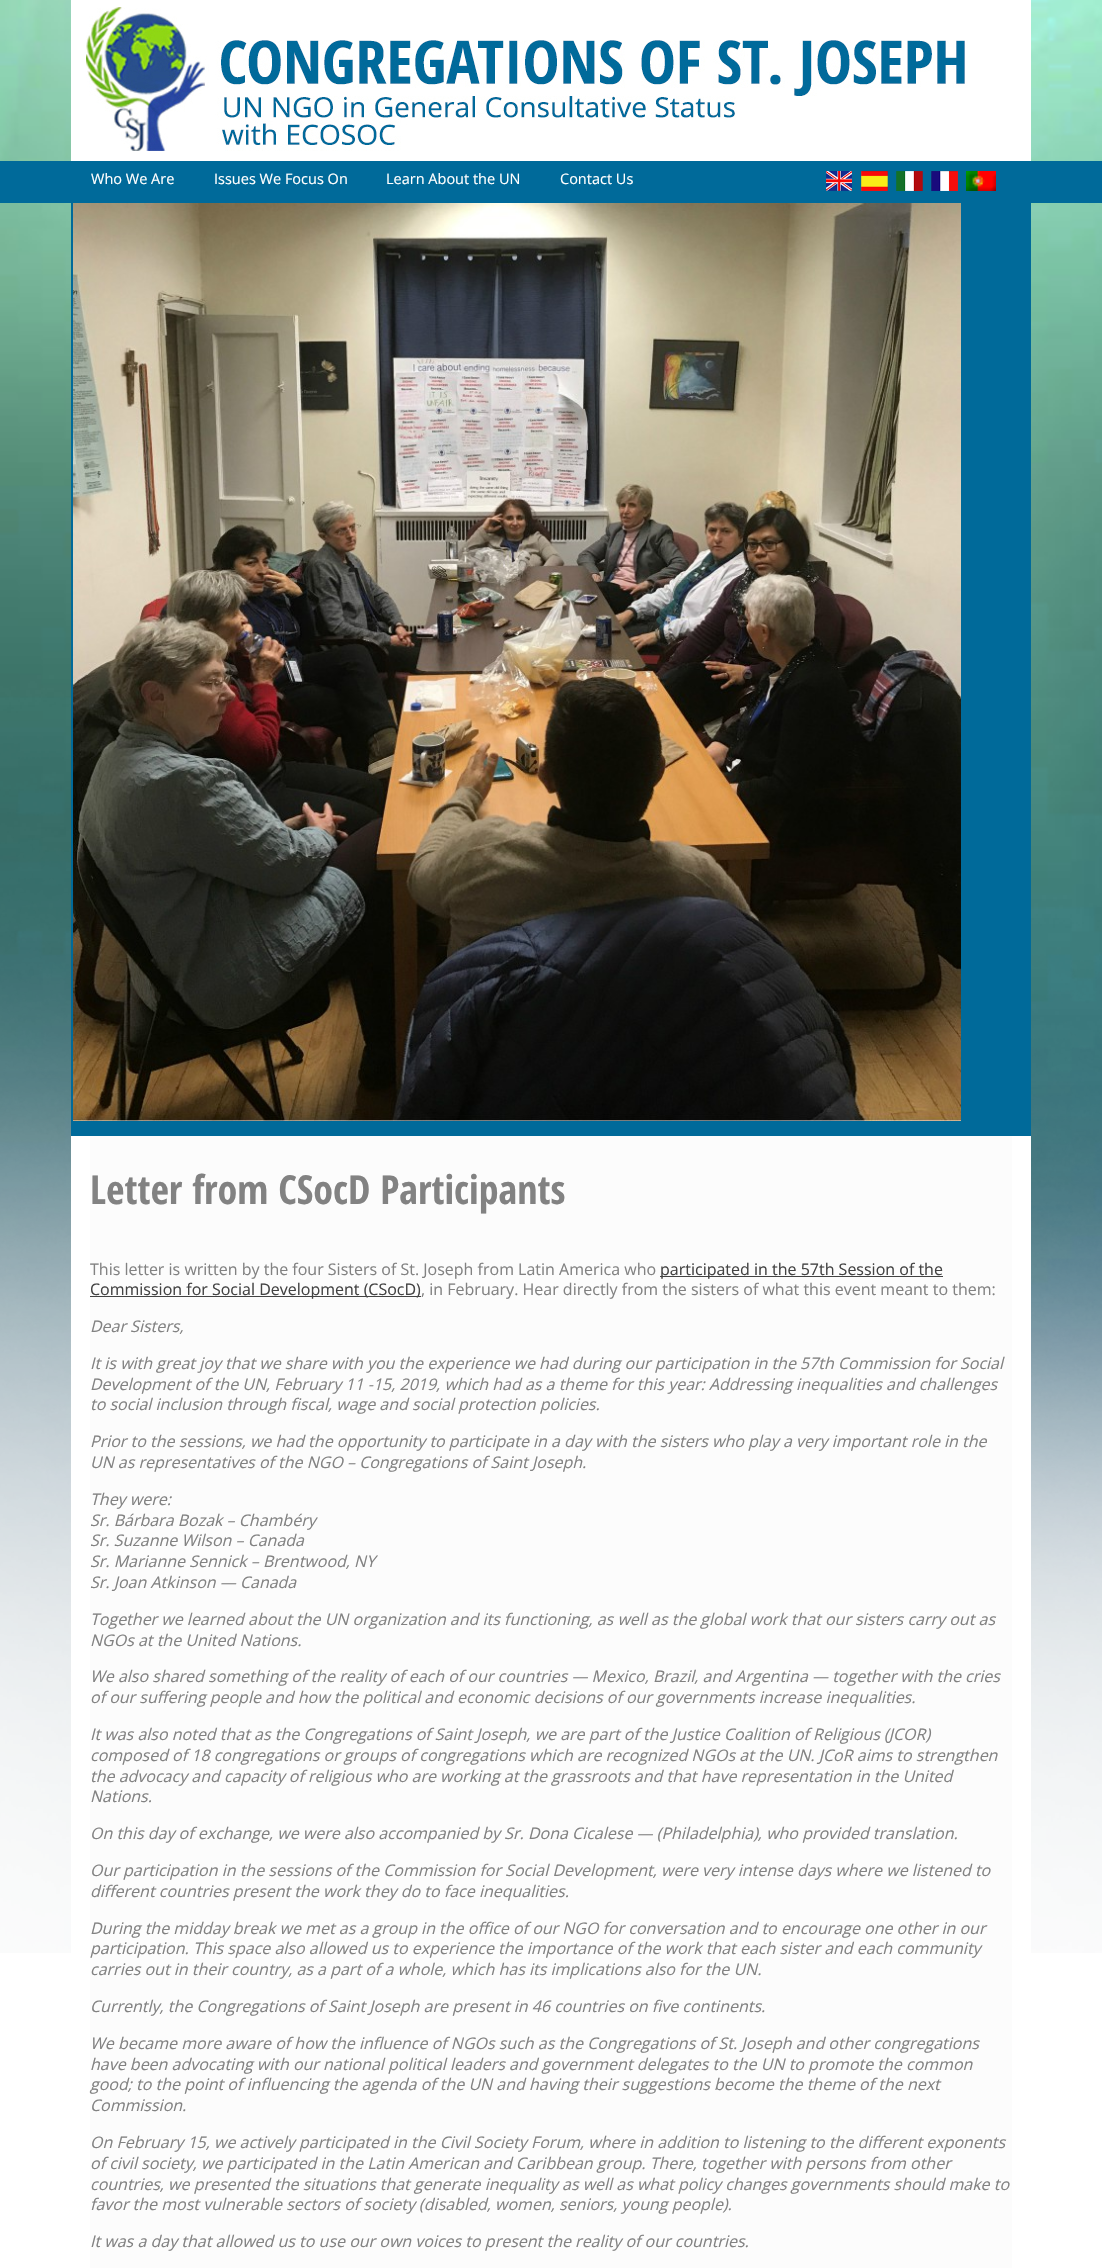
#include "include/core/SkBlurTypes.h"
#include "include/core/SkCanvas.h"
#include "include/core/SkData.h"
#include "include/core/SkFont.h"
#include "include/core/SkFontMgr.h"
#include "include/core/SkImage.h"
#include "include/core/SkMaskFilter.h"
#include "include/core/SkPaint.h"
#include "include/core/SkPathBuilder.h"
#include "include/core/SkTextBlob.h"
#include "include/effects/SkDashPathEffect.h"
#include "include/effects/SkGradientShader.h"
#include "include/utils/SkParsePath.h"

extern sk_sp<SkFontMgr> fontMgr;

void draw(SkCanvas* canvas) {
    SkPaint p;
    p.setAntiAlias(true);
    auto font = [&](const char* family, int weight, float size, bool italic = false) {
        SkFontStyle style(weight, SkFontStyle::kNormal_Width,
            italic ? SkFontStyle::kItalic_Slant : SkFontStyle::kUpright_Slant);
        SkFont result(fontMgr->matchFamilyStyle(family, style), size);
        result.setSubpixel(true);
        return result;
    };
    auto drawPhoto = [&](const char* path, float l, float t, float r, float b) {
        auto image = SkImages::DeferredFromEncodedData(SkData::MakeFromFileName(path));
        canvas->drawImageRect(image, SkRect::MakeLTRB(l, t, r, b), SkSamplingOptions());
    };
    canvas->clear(0xFFFFFFFF);
    drawPhoto("media/1.png", 0, 0, 1102, 1953);
    p.setColor(0xFFFFFFFF);
    canvas->drawRect(SkRect::MakeLTRB(71, 0, 1031, 161), p);
    drawPhoto("media/2.png", 86, 7, 968, 151);
    p.setColor(0xFF006A9A);
    canvas->drawRect(SkRect::MakeLTRB(0, 161, 1102, 203), p);
    auto font1 = font("Open Sans", 400, 14.5f);
    p.setColor(0xFFFFFFFF);
    {
        const struct { const char* s; float x, y; } items[] = {
            {"Who We Are", 91, 184},
            {"Issues We Focus On", 214, 184},
            {"Learn About the UN", 386, 184},
            {"Contact Us", 560, 184},
        };
        for (auto [s, x, y] : items) {
            canvas->drawString(s, x, y, font1, p);
        }
    }
    drawPhoto("media/3.png", 826, 171, 852, 191);
    drawPhoto("media/4.png", 861, 171, 888, 191);
    drawPhoto("media/5.png", 896, 171, 923, 191);
    drawPhoto("media/6.png", 931, 171, 958, 191);
    drawPhoto("media/7.png", 966, 171, 996, 191);
    p.setColor(0xFF006A9A);
    canvas->drawRect(SkRect::MakeLTRB(71, 203, 1031, 1136), p);
    drawPhoto("media/8.png", 73, 203, 961, 1121);
    p.setColor(0xFFFFFFFF);
    canvas->drawRect(SkRect::MakeLTRB(71, 1136, 1031, 1953), p);
    p.setColor(0xFFFCFCFC);
    canvas->drawRect(SkRect::MakeLTRB(90, 1136, 1012, 2268), p);
    auto font2 = font("Open Sans Condensed", 700, 40);
    p.setColor(0xFF828282);
    canvas->drawString("Letter from CSocD Participants", 90, 1204, font2, p);
    auto font3 = font("Open Sans", 400, 16);
    canvas->drawString("This letter is written by the four Sisters of St. Joseph from Latin America who", 90, 1275, font3, p);
    p.setColor(0xFF434343);
    canvas->drawRect(SkRect::MakeLTRB(660, 1276, 943, 1277), p);
    canvas->drawString("participated in the 57th Session of the", 660, 1275, font3, p);
    canvas->drawRect(SkRect::MakeLTRB(90, 1296, 421, 1297), p);
    canvas->drawString("Commission for Social Development (CSocD)", 90, 1295, font3, p);
    p.setColor(0xFF828282);
    canvas->drawString(", in February. Hear directly from the sisters of what this event meant to them:", 421, 1295, font3, p);
    auto font4 = font("Open Sans", 400, 16, true);
    {
        const struct { const char* s; float x, y; } items[] = {
            {"Dear Sisters,", 90, 1332},
            {"It is with great joy that we share with you the experience we had during our participation in the 57th Commission for Social", 90, 1369},
            {"Development of the UN, February 11 -15, 2019, which had as a theme for this year: Addressing inequalities and challenges", 90, 1390},
            {"to social inclusion through fiscal, wage and social protection policies.", 90, 1410},
            {"Prior to the sessions, we had the opportunity to participate in a day with the sisters who play a very important role in the", 90, 1447},
            {"UN as representatives of the NGO – Congregations of Saint Joseph.", 90, 1468},
            {"They were:", 90, 1505},
            {"Sr. Bárbara Bozak – Chambéry", 90, 1526},
            {"Sr. Suzanne Wilson – Canada", 90, 1546},
            {"Sr. Marianne Sennick – Brentwood, NY", 90, 1567},
            {"Sr. Joan Atkinson — Canada", 90, 1588},
            {"Together we learned about the UN organization and its functioning, as well as the global work that our sisters carry out as", 90, 1625},
            {"NGOs at the United Nations.", 90, 1646},
            {"We also shared something of the reality of each of our countries — Mexico, Brazil, and Argentina — together with the cries", 90, 1682},
            {"of our suffering people and how the political and economic decisions of our governments increase inequalities.", 90, 1703},
            {"It was also noted that as the Congregations of Saint Joseph, we are part of the Justice Coalition of Religious (JCOR)", 90, 1740},
            {"composed of 18 congregations or groups of congregations which are recognized NGOs at the UN. JCoR aims to strengthen", 90, 1761},
            {"the advocacy and capacity of religious who are working at the grassroots and that have representation in the United", 90, 1782},
            {"Nations.", 90, 1802},
            {"On this day of exchange, we were also accompanied by Sr. Dona Cicalese — (Philadelphia), who provided translation.", 90, 1839},
            {"Our participation in the sessions of the Commission for Social Development, were very intense days where we listened to", 90, 1876},
            {"different countries present the work they do to face inequalities.", 90, 1897},
            {"During the midday break we met as a group in the office of our NGO for conversation and to encourage one other in our", 90, 1934},
            {"participation. This space also allowed us to experience the importance of the work that each sister and each community", 90, 1954},
            {"carries out in their country, as a part of a whole, which has its implications also for the UN.", 90, 1975},
            {"Currently, the Congregations of Saint Joseph are present in 46 countries on five continents.", 90, 2012},
            {"We became more aware of how the influence of NGOs such as the Congregations of St. Joseph and other congregations", 90, 2049},
            {"have been advocating with our national political leaders and government delegates to the UN to promote the common", 90, 2070},
            {"good; to the point of influencing the agenda of the UN and having their suggestions become the theme of the next", 90, 2090},
            {"Commission.", 90, 2111},
            {"On February 15, we actively participated in the Civil Society Forum, where in addition to listening to the different exponents", 90, 2148},
            {"of civil society, we participated in the Latin American and Caribbean group. There, together with persons from other", 90, 2169},
            {"countries, we presented the situations that generate inequality as well as what policy changes governments should make to", 90, 2190},
            {"favor the most vulnerable sectors of society (disabled, women, seniors, young people).", 90, 2210},
            {"It was a day that allowed us to use our own voices to present the reality of our countries.", 90, 2247},
        };
        for (auto [s, x, y] : items) {
            canvas->drawString(s, x, y, font4, p);
        }
    }
}
